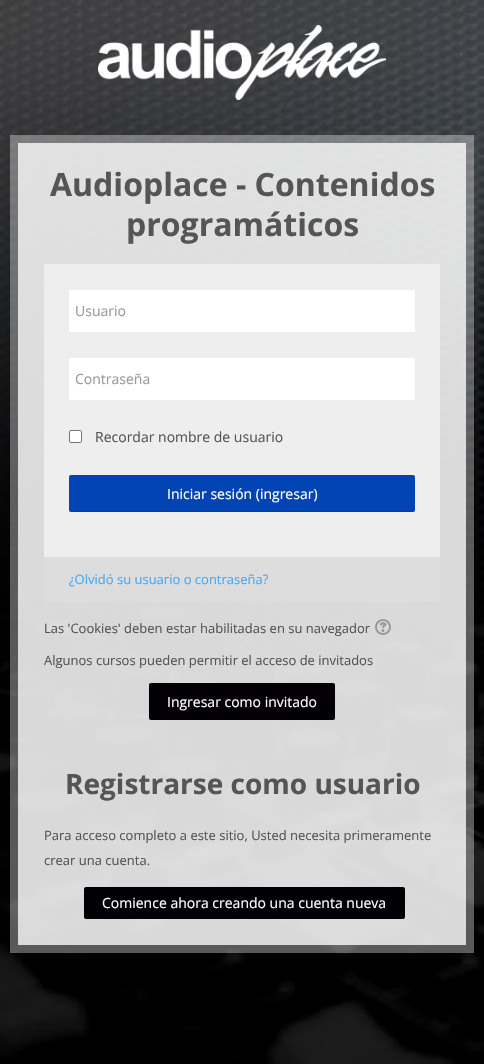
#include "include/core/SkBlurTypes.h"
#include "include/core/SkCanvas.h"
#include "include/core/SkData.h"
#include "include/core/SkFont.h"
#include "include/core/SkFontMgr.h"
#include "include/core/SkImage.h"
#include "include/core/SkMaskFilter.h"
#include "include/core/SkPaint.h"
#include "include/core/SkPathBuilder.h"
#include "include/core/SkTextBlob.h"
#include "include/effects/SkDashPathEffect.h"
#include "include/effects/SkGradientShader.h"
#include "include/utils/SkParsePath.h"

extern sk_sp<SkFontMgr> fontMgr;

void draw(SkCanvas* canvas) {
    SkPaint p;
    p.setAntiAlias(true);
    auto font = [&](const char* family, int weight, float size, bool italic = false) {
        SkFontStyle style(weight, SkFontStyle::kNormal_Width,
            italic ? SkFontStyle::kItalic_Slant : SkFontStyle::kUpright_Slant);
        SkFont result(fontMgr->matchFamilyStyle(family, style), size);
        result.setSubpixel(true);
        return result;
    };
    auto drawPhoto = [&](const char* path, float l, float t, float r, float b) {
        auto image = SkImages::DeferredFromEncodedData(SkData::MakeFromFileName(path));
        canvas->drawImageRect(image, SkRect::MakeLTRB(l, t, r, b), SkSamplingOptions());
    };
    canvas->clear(0xFFFFFFFF);
    drawPhoto("media/1.png", 0, 0, 484, 1064);
    drawPhoto("media/2.png", 98, 25, 386, 100);
    p.setColor(0xD9FFFFFF);
    canvas->drawRect(SkRect::MakeLTRB(18, 143, 466, 945), p);
    p.setStyle(SkPaint::kStroke_Style);
    p.setStrokeWidth(8);
    p.setColor(0x59FFFFFF);
    canvas->drawPath(SkPathBuilder().moveTo(14, 139).lineTo(470, 139).lineTo(470, 949).lineTo(14, 949).close().detach(), p);
    auto font1 = font("Open Sans", 700, 32);
    p.setStyle(SkPaint::kFill_Style);
    p.setColor(0xFF555555);
    canvas->drawString("Audioplace - Contenidos", 50, 196, font1, p);
    canvas->drawString("programáticos", 126, 236, font1, p);
    p.setColor(0xFFEEEEEE);
    canvas->drawRect(SkRect::MakeLTRB(44, 264, 440, 557), p);
    p.setColor(0xFFFFFFFF);
    canvas->drawRect(SkRect::MakeLTRB(69, 290, 415, 332), p);
    auto font2 = font("Open Sans", 400, 14);
    p.setColor(0xFF999999);
    canvas->drawString("Usuario", 75, 316, font2, p);
    p.setColor(0xFFFFFFFF);
    canvas->drawRect(SkRect::MakeLTRB(69, 358, 415, 400), p);
    p.setColor(0xFF999999);
    canvas->drawString("Contraseña", 75, 384, font2, p);
    p.setColor(0xFFFFFFFF);
    canvas->drawRoundRect(SkRect::MakeLTRB(69.5f, 430.5f, 81.5f, 442.5f), 1.5f, 1.5f, p);
    p.setStyle(SkPaint::kStroke_Style);
    p.setStrokeWidth(1);
    p.setColor(0xFF767676);
    canvas->drawRoundRect(SkRect::MakeLTRB(69.5f, 430.5f, 81.5f, 442.5f), 1.5f, 1.5f, p);
    p.setStyle(SkPaint::kFill_Style);
    p.setColor(0xFF555555);
    canvas->drawString("Recordar nombre de usuario", 95, 442, font2, p);
    p.setColor(0xFF0344B4);
    canvas->drawRoundRect(SkRect::MakeLTRB(69, 475, 415, 512), 2, 2, p);
    p.setColor(0x1A000000);
    canvas->drawPath(SkPathBuilder().moveTo(69, 509).cubicTo(69, 510, 69, 512, 71, 512).lineTo(413, 512).lineTo(415, 511).lineTo(415, 509).cubicTo(415, 510, 414, 511, 413, 511).lineTo(71, 511).cubicTo(70, 511, 69, 510, 69, 509).close().detach(), p);
    p.setColor(0xFFFFFFFF);
    canvas->drawString("Iniciar sesión (ingresar)", 167, 499, font2, p);
    p.setColor(0xFFDDDDDD);
    canvas->drawRect(SkRect::MakeLTRB(44, 557, 440, 602), p);
    auto font3 = font("Open Sans", 400, 13);
    p.setColor(0xFF41ABFB);
    canvas->drawString("¿Olvidó su usuario o contraseña?", 69, 584, font3, p);
    p.setColor(0xFF555555);
    canvas->drawString("Las 'Cookies' deben estar habilitadas en su navegador", 44, 633, font3, p);
    drawPhoto("media/3.png", 375, 619, 391, 635);
    canvas->drawString("Algunos cursos pueden permitir el acceso de invitados", 44, 665, font3, p);
    p.setColor(0xFF030005);
    canvas->drawRoundRect(SkRect::MakeLTRB(149, 683, 335, 720), 2, 2, p);
    p.setColor(0x1A000000);
    canvas->drawPath(SkPathBuilder().moveTo(149, 717).lineTo(149, 718).cubicTo(149, 719, 150, 720, 151, 720).lineTo(333, 720).cubicTo(334, 720, 335, 719, 335, 718).lineTo(335, 717).cubicTo(335, 718, 334, 719, 333, 719).lineTo(151, 719).cubicTo(150, 719, 149, 718, 149, 717).close().detach(), p);
    p.setColor(0xFFFFFFFF);
    canvas->drawString("Ingresar como invitado", 167, 707, font2, p);
    auto font4 = font("Open Sans", 700, 28);
    p.setColor(0xFF555555);
    canvas->drawString("Registrarse como usuario", 65, 794, font4, p);
    canvas->drawString("Para acceso completo a este sitio, Usted necesita primeramente", 44, 840, font3, p);
    canvas->drawString("crear una cuenta.", 44, 865, font3, p);
    p.setColor(0xFF030005);
    canvas->drawRoundRect(SkRect::MakeLTRB(84, 887, 405, 919), 2, 2, p);
    p.setColor(0x1A000000);
    canvas->drawPath(SkPathBuilder().moveTo(84, 916).cubicTo(84, 917, 84, 919, 86, 919).lineTo(404, 919).lineTo(405, 918).lineTo(405, 916).cubicTo(405, 917, 404, 918, 403, 918).lineTo(86, 918).cubicTo(85, 918, 84, 917, 84, 916).close().detach(), p);
    p.setColor(0xFFFFFFFF);
    canvas->drawString("Comience ahora creando una cuenta nueva", 102, 908, font2, p);
}
